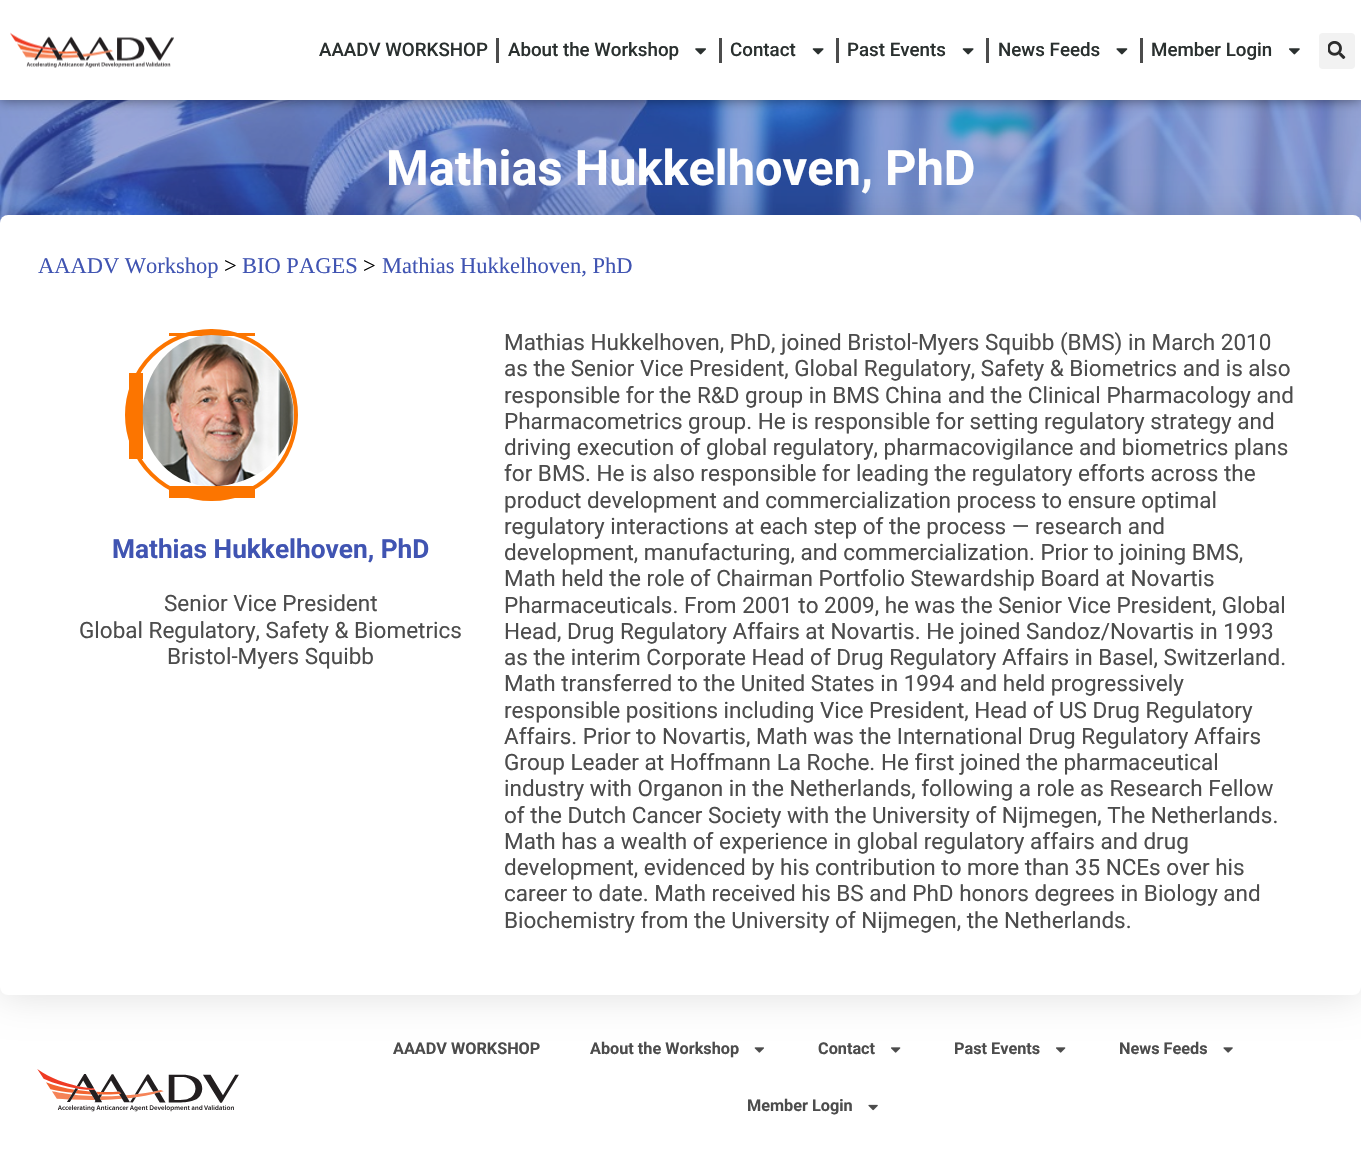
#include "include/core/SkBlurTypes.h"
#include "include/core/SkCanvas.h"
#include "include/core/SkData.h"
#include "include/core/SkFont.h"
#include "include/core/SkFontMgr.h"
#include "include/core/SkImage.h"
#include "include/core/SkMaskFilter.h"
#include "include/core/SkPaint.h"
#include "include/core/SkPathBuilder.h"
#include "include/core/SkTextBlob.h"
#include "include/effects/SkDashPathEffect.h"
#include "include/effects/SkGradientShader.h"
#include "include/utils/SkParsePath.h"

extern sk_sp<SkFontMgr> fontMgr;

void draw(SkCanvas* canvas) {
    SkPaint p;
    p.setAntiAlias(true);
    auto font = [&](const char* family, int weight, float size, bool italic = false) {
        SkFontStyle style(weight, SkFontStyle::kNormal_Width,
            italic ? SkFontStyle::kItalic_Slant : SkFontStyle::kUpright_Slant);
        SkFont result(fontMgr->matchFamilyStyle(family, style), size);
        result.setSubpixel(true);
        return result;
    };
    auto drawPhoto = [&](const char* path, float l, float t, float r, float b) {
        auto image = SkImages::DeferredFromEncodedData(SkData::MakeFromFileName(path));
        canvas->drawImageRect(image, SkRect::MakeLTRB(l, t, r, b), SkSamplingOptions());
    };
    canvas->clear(0xFFFFFFFF);
    drawPhoto("media/7.png", 0, 100, 1361, 223);
    p.setColor(0x80000000);
    p.setMaskFilter(SkMaskFilter::MakeBlur(kNormal_SkBlurStyle, 6));
    canvas->drawRect(SkRect::MakeLTRB(0, 0, 1361, 100), p);
    p.setMaskFilter(nullptr);
    p.setColor(0xFFFFFFFF);
    canvas->drawRect(SkRect::MakeLTRB(0, 0, 1361, 100), p);
    drawPhoto("media/1.png", 10, 32, 174, 68);
    auto font1 = font("Roboto", 500, 18.75f);
    p.setColor(0xFF2A302F);
    canvas->drawString("AAADV WORKSHOP", 319, 56, font1, p);
    p.setColor(0xFF4C4C4C);
    canvas->drawRect(SkRect::MakeLTRB(496, 38, 499, 63), p);
    p.setColor(0xFF2A302F);
    canvas->drawString("About the Workshop", 508, 56, font1, p);
    drawPhoto("media/2.png", 695, 48, 706, 55);
    p.setColor(0xFF4C4C4C);
    canvas->drawRect(SkRect::MakeLTRB(719, 38, 722, 63), p);
    p.setColor(0xFF2A302F);
    canvas->drawString("Contact", 730, 56, font1, p);
    drawPhoto("media/3.png", 812, 48, 824, 55);
    p.setColor(0xFF4C4C4C);
    canvas->drawRect(SkRect::MakeLTRB(836, 38, 839, 63), p);
    p.setColor(0xFF2A302F);
    canvas->drawString("Past Events", 847, 56, font1, p);
    drawPhoto("media/3.png", 962, 48, 974, 55);
    p.setColor(0xFF4C4C4C);
    canvas->drawRect(SkRect::MakeLTRB(986, 38, 989, 63), p);
    p.setColor(0xFF2A302F);
    canvas->drawString("News Feeds", 998, 56, font1, p);
    drawPhoto("media/4.png", 1116, 48, 1128, 55);
    p.setColor(0xFF4C4C4C);
    canvas->drawRect(SkRect::MakeLTRB(1140, 38, 1143, 63), p);
    p.setColor(0xFF2A302F);
    canvas->drawString("Member Login", 1151, 56, font1, p);
    drawPhoto("media/5.png", 1289, 48, 1300, 55);
    p.setColor(0xFFF2F2F2);
    canvas->drawRoundRect(SkRect::MakeLTRB(1319, 33, 1355, 69), 4, 4, p);
    drawPhoto("media/6.png", 1328, 41, 1346, 59);
    auto font2 = font("Roboto", 700, 48.75f);
    p.setColor(0xFFFFFFFF);
    canvas->drawString("Mathias Hukkelhoven, PhD", 386, 185, font2, p);
    p.setColor(0x21000000);
    p.setMaskFilter(SkMaskFilter::MakeBlur(kNormal_SkBlurStyle, 19));
    canvas->drawRoundRect(SkRect::MakeLTRB(0, 215, 1361, 995), 8, 8, p);
    p.setMaskFilter(nullptr);
    p.setColor(0xFFFFFFFF);
    canvas->drawRoundRect(SkRect::MakeLTRB(0, 215, 1361, 995), 8, 8, p);
    auto font3 = font("Liberation Serif", 400, 22.5f);
    p.setColor(0xFF4054B2);
    canvas->drawString("AAADV Workshop", 38, 273, font3, p);
    p.setColor(0xFF000000);
    canvas->drawString(">", 224, 273, font3, p);
    p.setColor(0xFF4054B2);
    canvas->drawString("BIO PAGES", 242, 273, font3, p);
    p.setColor(0xFF000000);
    canvas->drawString(">", 363, 273, font3, p);
    p.setColor(0xFF4054B2);
    canvas->drawString("Mathias Hukkelhoven, PhD", 382, 273, font3, p);
    p.setStyle(SkPaint::kStroke_Style);
    p.setStrokeWidth(4);
    p.setColor(0xFFFC7500);
    canvas->drawRoundRect(SkRect::MakeLTRB(127, 331, 296, 499), 84, 84, p);
    p.setStyle(SkPaint::kFill_Style);
    {
        const struct { float l, t, r, b; SkColor color; } items[] = {
            {169, 333, 255, 336, 0xFFFC7500},
            {169, 486, 255, 498, 0xFFFC7500},
            {129, 373, 143, 459, 0xFFFC7500},
        };
        for (auto [l, t, r, b, color] : items) {
            p.setColor(color);
            canvas->drawRect(SkRect::MakeLTRB(l, t, r, b), p);
        }
    }
    drawPhoto("media/8.png", 142, 335, 294, 487);
    auto font4 = font("Roboto", 700, 26.25f);
    p.setColor(0xFF4054B2);
    canvas->drawString("Mathias Hukkelhoven, PhD", 112, 558, font4, p);
    auto font5 = font("Roboto", 400, 22.5f);
    p.setColor(0xFF4C4C4C);
    {
        const struct { const char* s; float x, y; } items[] = {
            {"Senior Vice President", 164, 611},
            {"Global Regulatory, Safety & Biometrics", 79, 638},
            {"Bristol-Myers Squibb", 167, 664},
            {"Mathias Hukkelhoven, PhD, joined Bristol-Myers Squibb (BMS) in March 2010", 504, 350},
            {"as the Senior Vice President, Global Regulatory, Safety & Biometrics and is also", 504, 376},
            {"responsible for the R&D group in BMS China and the Clinical Pharmacology and", 504, 403},
            {"Pharmacometrics group. He is responsible for setting regulatory strategy and", 504, 429},
            {"driving execution of global regulatory, pharmacovigilance and biometrics plans", 504, 455},
            {"for BMS. He is also responsible for leading the regulatory efforts across the", 504, 481},
            {"product development and commercialization process to ensure optimal", 504, 508},
            {"regulatory interactions at each step of the process — research and", 504, 534},
            {"development, manufacturing, and commercialization. Prior to joining BMS,", 504, 560},
            {"Math held the role of Chairman Portfolio Stewardship Board at Novartis", 504, 586},
            {"Pharmaceuticals. From 2001 to 2009, he was the Senior Vice President, Global", 504, 613},
            {"Head, Drug Regulatory Affairs at Novartis. He joined Sandoz/Novartis in 1993", 504, 639},
            {"as the interim Corporate Head of Drug Regulatory Affairs in Basel, Switzerland.", 504, 665},
            {"Math transferred to the United States in 1994 and held progressively", 504, 691},
            {"responsible positions including Vice President, Head of US Drug Regulatory", 504, 718},
            {"Affairs. Prior to Novartis, Math was the International Drug Regulatory Affairs", 504, 744},
            {"Group Leader at Hoffmann La Roche. He first joined the pharmaceutical", 504, 770},
            {"industry with Organon in the Netherlands, following a role as Research Fellow", 504, 796},
            {"of the Dutch Cancer Society with the University of Nijmegen, The Netherlands.", 504, 823},
            {"Math has a wealth of experience in global regulatory affairs and drug", 504, 849},
            {"development, evidenced by his contribution to more than 35 NCEs over his", 504, 875},
            {"career to date. Math received his BS and PhD honors degrees in Biology and", 504, 901},
            {"Biochemistry from the University of Nijmegen, the Netherlands.", 504, 928},
        };
        for (auto [s, x, y] : items) {
            canvas->drawString(s, x, y, font5, p);
        }
    }
    drawPhoto("media/9.png", 37, 1069, 239, 1112);
    auto font6 = font("Roboto", 700, 16.25f);
    canvas->drawString("AAADV WORKSHOP", 393, 1054, font6, p);
    canvas->drawString("About the Workshop", 590, 1054, font6, p);
    drawPhoto("media/10.png", 754, 1047, 764, 1053);
    canvas->drawString("Contact", 818, 1054, font6, p);
    drawPhoto("media/11.png", 891, 1047, 901, 1053);
    canvas->drawString("Past Events", 954, 1054, font6, p);
    drawPhoto("media/11.png", 1056, 1047, 1066, 1053);
    canvas->drawString("News Feeds", 1119, 1054, font6, p);
    drawPhoto("media/12.png", 1223, 1047, 1233, 1053);
    canvas->drawString("Member Login", 747, 1111, font6, p);
    drawPhoto("media/13.png", 868, 1104, 878, 1111);
}
